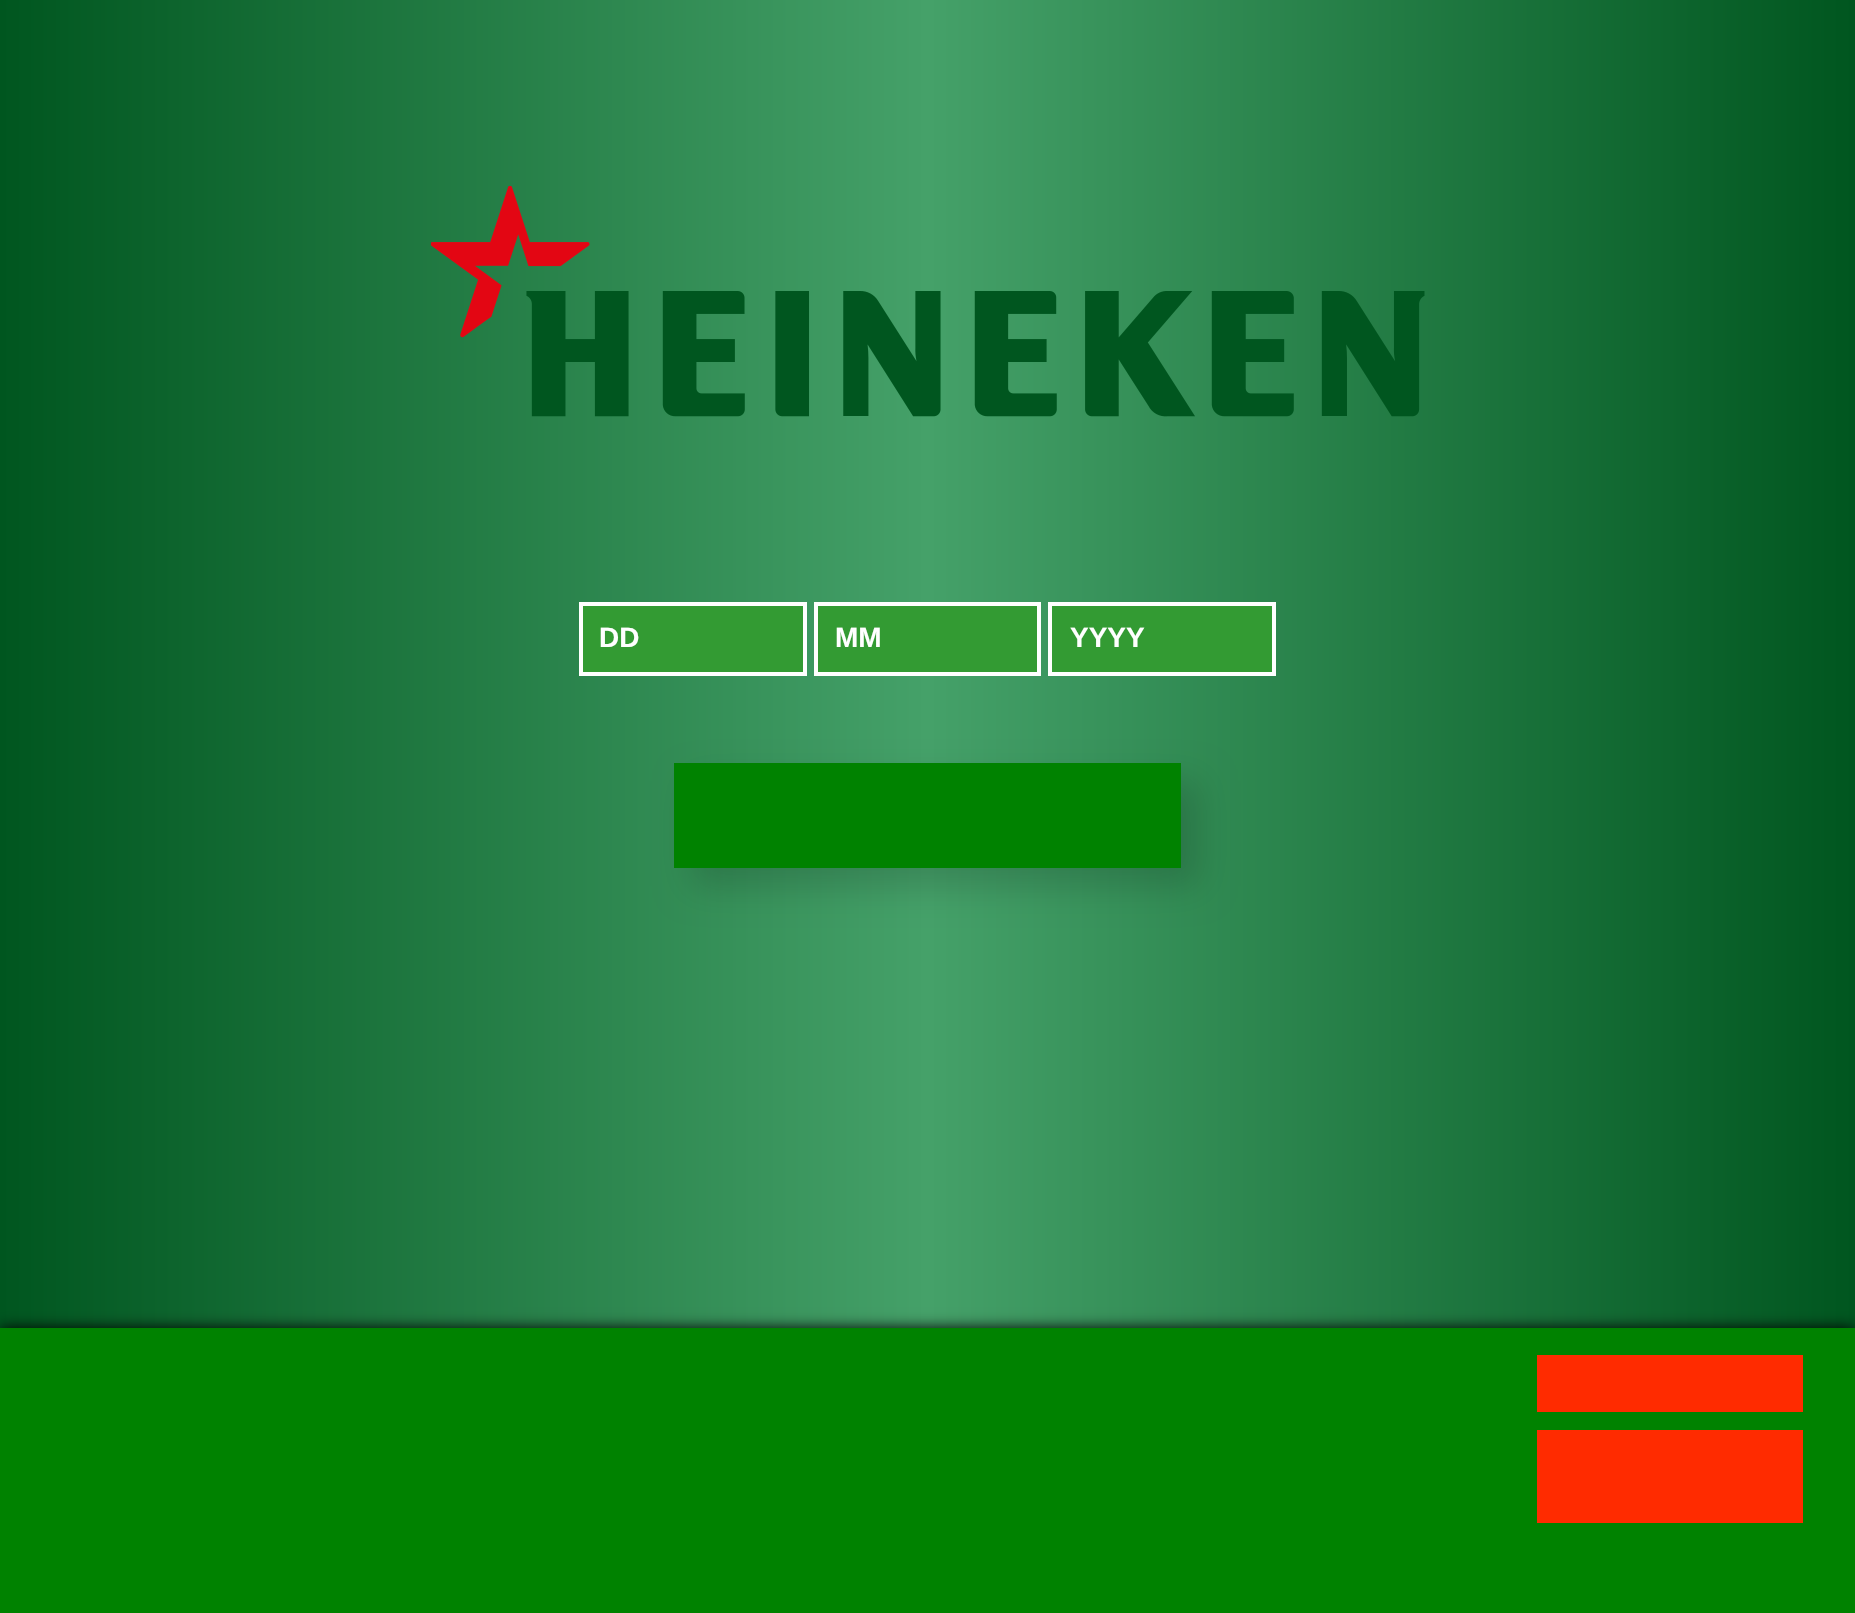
#include "include/core/SkBlurTypes.h"
#include "include/core/SkCanvas.h"
#include "include/core/SkData.h"
#include "include/core/SkFont.h"
#include "include/core/SkFontMgr.h"
#include "include/core/SkImage.h"
#include "include/core/SkMaskFilter.h"
#include "include/core/SkPaint.h"
#include "include/core/SkPathBuilder.h"
#include "include/core/SkTextBlob.h"
#include "include/effects/SkDashPathEffect.h"
#include "include/effects/SkGradientShader.h"
#include "include/utils/SkParsePath.h"

extern sk_sp<SkFontMgr> fontMgr;

void draw(SkCanvas* canvas) {
    SkPaint p;
    p.setAntiAlias(true);
    auto font = [&](const char* family, int weight, float size, bool italic = false) {
        SkFontStyle style(weight, SkFontStyle::kNormal_Width,
            italic ? SkFontStyle::kItalic_Slant : SkFontStyle::kUpright_Slant);
        SkFont result(fontMgr->matchFamilyStyle(family, style), size);
        result.setSubpixel(true);
        return result;
    };
    auto drawPhoto = [&](const char* path, float l, float t, float r, float b) {
        auto image = SkImages::DeferredFromEncodedData(SkData::MakeFromFileName(path));
        canvas->drawImageRect(image, SkRect::MakeLTRB(l, t, r, b), SkSamplingOptions());
    };
    canvas->clear(0xFFFFFFFF);
    {
        const SkColor colors[] = {0xFF00561F, 0xFF45A169, 0xFF00561F};
        const float stops[] = {0, 0.5f, 1};
        const SkPoint ends[] = {{0, 807}, {1855, 807}};
        p.setShader(SkGradientShader::MakeLinear(ends, colors, stops, 3, SkTileMode::kClamp));
        p.setAlpha(255);
    }
    canvas->drawRect(SkRect::MakeLTRB(0, 0, 1855, 1328), p);
    drawPhoto("media/1.png", 431, 186, 1425, 417);
    p.setShader(nullptr);
    p.setColor(0xFF339B33);
    canvas->drawRect(SkRect::MakeLTRB(581, 604, 805, 674), p);
    p.setStyle(SkPaint::kStroke_Style);
    p.setStrokeWidth(4);
    p.setColor(0xFFFFFFFF);
    canvas->drawRect(SkRect::MakeLTRB(581, 604, 805, 674), p);
    auto font1 = font("Liberation Sans", 700, 28);
    p.setStyle(SkPaint::kFill_Style);
    canvas->drawString("DD", 599, 647, font1, p);
    p.setColor(0xFF339B33);
    canvas->drawRect(SkRect::MakeLTRB(816, 604, 1039, 674), p);
    p.setStyle(SkPaint::kStroke_Style);
    p.setColor(0xFFFFFFFF);
    canvas->drawRect(SkRect::MakeLTRB(816, 604, 1039, 674), p);
    p.setStyle(SkPaint::kFill_Style);
    canvas->drawString("MM", 835, 647, font1, p);
    p.setColor(0xFF339B33);
    canvas->drawRect(SkRect::MakeLTRB(1050, 604, 1274, 674), p);
    p.setStyle(SkPaint::kStroke_Style);
    p.setColor(0xFFFFFFFF);
    canvas->drawRect(SkRect::MakeLTRB(1050, 604, 1274, 674), p);
    p.setStyle(SkPaint::kFill_Style);
    canvas->drawString("YYYY", 1070, 647, font1, p);
    p.setColor(0x29000000);
    p.setMaskFilter(SkMaskFilter::MakeBlur(kNormal_SkBlurStyle, 17.5f));
    canvas->drawRect(SkRect::MakeLTRB(691, 781, 1199, 886), p);
    p.setMaskFilter(nullptr);
    p.setColor(0xFF008200);
    canvas->drawRect(SkRect::MakeLTRB(674, 763, 1181, 868), p);
    p.setColor(0xFF000000);
    p.setMaskFilter(SkMaskFilter::MakeBlur(kNormal_SkBlurStyle, 7));
    canvas->drawRect(SkRect::MakeLTRB(0, 1328, 1855, 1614), p);
    p.setMaskFilter(nullptr);
    {
        const struct { float l, t, r, b; SkColor color; } items[] = {
            {0, 1328, 1855, 1613, 0xFF008200},
            {1537, 1355, 1803, 1412, 0xFFFF2B00},
            {1537, 1430, 1803, 1523, 0xFFFF2B00},
        };
        for (auto [l, t, r, b, color] : items) {
            p.setColor(color);
            canvas->drawRect(SkRect::MakeLTRB(l, t, r, b), p);
        }
    }
}
